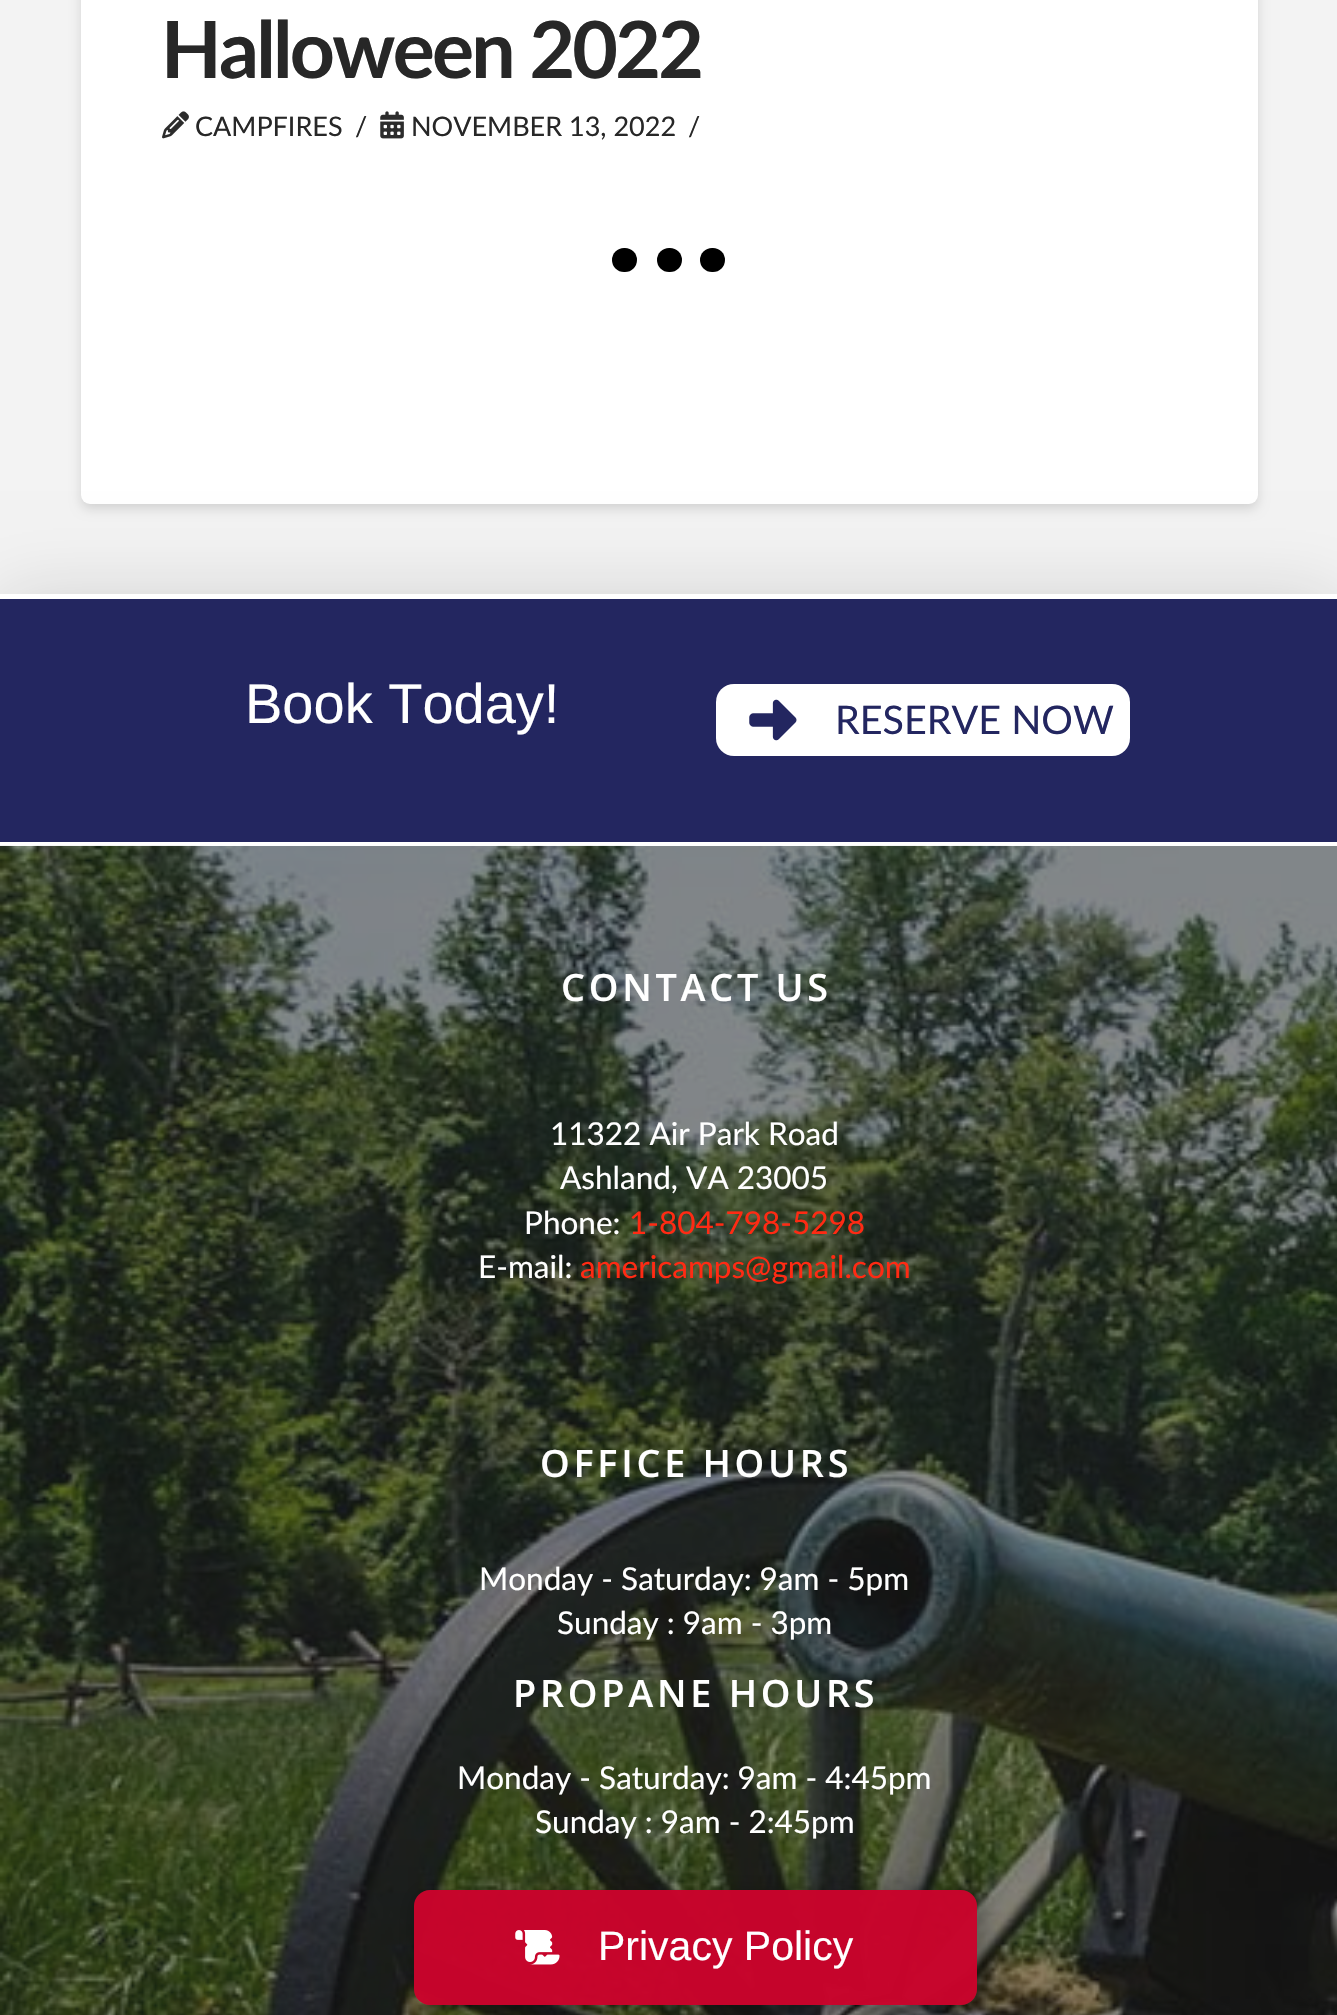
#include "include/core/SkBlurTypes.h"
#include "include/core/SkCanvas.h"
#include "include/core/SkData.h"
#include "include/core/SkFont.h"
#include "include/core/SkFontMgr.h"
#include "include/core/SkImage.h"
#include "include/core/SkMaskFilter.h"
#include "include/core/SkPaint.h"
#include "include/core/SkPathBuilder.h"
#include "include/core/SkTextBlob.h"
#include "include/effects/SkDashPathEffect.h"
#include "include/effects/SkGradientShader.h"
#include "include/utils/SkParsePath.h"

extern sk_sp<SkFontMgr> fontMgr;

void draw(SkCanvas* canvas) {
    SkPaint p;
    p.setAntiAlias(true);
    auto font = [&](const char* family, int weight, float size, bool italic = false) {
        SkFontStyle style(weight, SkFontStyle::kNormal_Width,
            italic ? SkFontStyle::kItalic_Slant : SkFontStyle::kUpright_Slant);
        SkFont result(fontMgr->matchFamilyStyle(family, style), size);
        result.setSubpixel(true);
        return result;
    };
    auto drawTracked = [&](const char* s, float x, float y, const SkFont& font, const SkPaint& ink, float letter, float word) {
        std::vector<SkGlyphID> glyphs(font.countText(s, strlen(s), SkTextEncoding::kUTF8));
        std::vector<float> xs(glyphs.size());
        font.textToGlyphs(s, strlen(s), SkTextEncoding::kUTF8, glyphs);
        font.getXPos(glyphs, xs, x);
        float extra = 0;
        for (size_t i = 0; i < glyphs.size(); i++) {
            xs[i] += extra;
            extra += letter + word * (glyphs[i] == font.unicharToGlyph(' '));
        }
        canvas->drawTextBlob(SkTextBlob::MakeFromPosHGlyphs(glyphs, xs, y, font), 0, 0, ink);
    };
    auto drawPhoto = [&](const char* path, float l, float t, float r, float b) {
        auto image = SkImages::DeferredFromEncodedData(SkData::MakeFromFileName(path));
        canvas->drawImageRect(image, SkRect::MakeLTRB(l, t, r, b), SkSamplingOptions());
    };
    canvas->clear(0xFFF3F3F3);
    p.setColor(0x21000000);
    p.setMaskFilter(SkMaskFilter::MakeBlur(kNormal_SkBlurStyle, 5.5f));
    canvas->drawRoundRect(SkRect::MakeLTRB(81, -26, 1258, 509), 9, 9, p);
    p.setMaskFilter(nullptr);
    p.setColor(0xFFFFFFFF);
    canvas->drawRoundRect(SkRect::MakeLTRB(81, -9, 1258, 504), 9, 9, p);
    auto font1 = font("Lato", 700, 78.75f);
    p.setColor(0xFF272727);
    drawTracked("Halloween 2022", 161, 78, font1, p, -2.75f, 0);
    drawPhoto("media/1.png", 162, 111, 189, 139);
    auto font2 = font("Lato", 400, 27);
    canvas->drawString("CAMPFIRES", 195, 136, font2, p);
    canvas->drawString("/", 355, 136, font2, p);
    drawPhoto("media/2.png", 380, 111, 404, 139);
    canvas->drawString("NOVEMBER 13, 2022", 411, 136, font2, p);
    canvas->drawString("/", 688, 136, font2, p);
    p.setColor(0xFF000000);
    canvas->drawRoundRect(SkRect::MakeLTRB(612, 248, 637, 272), 12, 12, p);
    canvas->drawRoundRect(SkRect::MakeLTRB(657, 248, 682, 272), 12, 12, p);
    canvas->drawRoundRect(SkRect::MakeLTRB(700, 248, 725, 272), 12, 12, p);
    p.setColor(0x26000000);
    p.setMaskFilter(SkMaskFilter::MakeBlur(kNormal_SkBlurStyle, 36));
    canvas->drawRect(SkRect::MakeLTRB(0, 599, 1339, 851), p);
    p.setMaskFilter(nullptr);
    {
        const struct { float l, t, r, b; SkColor color; } items[] = {
            {0, 599, 1337, 842, 0xFF232660},
            {0, 594, 1337, 599, 0xFFFFFFFF},
            {0, 842, 1337, 846, 0xFFFFFFFF},
        };
        for (auto [l, t, r, b, color] : items) {
            p.setColor(color);
            canvas->drawRect(SkRect::MakeLTRB(l, t, r, b), p);
        }
    }
    auto font3 = font("Liberation Sans", 400, 56);
    canvas->drawString("Book Today!", 245, 723, font3, p);
    canvas->drawRoundRect(SkRect::MakeLTRB(716, 684, 1130, 756), 18, 18, p);
    drawPhoto("media/3.png", 749, 699, 797, 741);
    auto font4 = font("Lato", 400, 39.5f);
    p.setColor(0xFF232660);
    canvas->drawString("RESERVE NOW", 835, 734, font4, p);
    drawPhoto("media/4.png", 0, 845, 1337, 2015);
    auto font5 = font("Open Sans", 600, 37.75f);
    p.setColor(0xFFFFFFFF);
    drawTracked("CONTACT US", 561, 1001, font5, p, 3.75f, 0);
    auto font6 = font("Lato", 400, 31.5f);
    {
        const struct { const char* s; float x, y; } items[] = {
            {"11322 Air Park Road", 550, 1145},
            {"Ashland, VA 23005", 560, 1189},
            {"Phone:", 524, 1234},
        };
        for (auto [s, x, y] : items) {
            canvas->drawString(s, x, y, font6, p);
        }
    }
    p.setColor(0xFFFF2A13);
    canvas->drawString("1-804-798-5298", 629, 1234, font6, p);
    p.setColor(0xFFFFFFFF);
    canvas->drawString("E-mail:", 478, 1278, font6, p);
    p.setColor(0xFFFF2A13);
    canvas->drawString("americamps@gmail.com", 580, 1278, font6, p);
    p.setColor(0xFFFFFFFF);
    drawTracked("OFFICE HOURS", 540, 1477, font5, p, 3.75f, 0);
    canvas->drawString("Monday - Saturday: 9am - 5pm", 479, 1590, font6, p);
    canvas->drawString("Sunday : 9am - 3pm", 557, 1634, font6, p);
    drawTracked("PROPANE HOURS", 513, 1707, font5, p, 3.75f, 0);
    canvas->drawString("Monday - Saturday: 9am - 4:45pm", 457, 1789, font6, p);
    canvas->drawString("Sunday : 9am - 2:45pm", 535, 1833, font6, p);
    canvas->save();
    canvas->clipPath(SkPathBuilder(SkPathFillType::kEvenOdd).moveTo(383, 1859).lineTo(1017, 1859).lineTo(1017, 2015).lineTo(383, 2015).close().moveTo(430, 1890).lineTo(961, 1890).cubicTo(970, 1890, 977, 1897, 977, 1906).lineTo(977, 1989).cubicTo(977, 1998, 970, 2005, 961, 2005).lineTo(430, 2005).cubicTo(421, 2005, 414, 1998, 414, 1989).lineTo(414, 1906).cubicTo(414, 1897, 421, 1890, 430, 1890).close().detach(), true);
    p.setColor(0x40000000);
    p.setMaskFilter(SkMaskFilter::MakeBlur(kNormal_SkBlurStyle, 10));
    canvas->drawRoundRect(SkRect::MakeLTRB(414, 1890, 986, 2014), 20, 20, p);
    p.setMaskFilter(nullptr);
    canvas->restore();
    p.setColor(0xFAC8032B);
    canvas->drawRoundRect(SkRect::MakeLTRB(414, 1890, 977, 2005), 16, 16, p);
    drawPhoto("media/5.png", 515, 1930, 560, 1965);
    auto font7 = font("Liberation Sans", 400, 41);
    p.setColor(0xFFFFFFFF);
    canvas->drawString("Privacy Policy", 598, 1960, font7, p);
}
